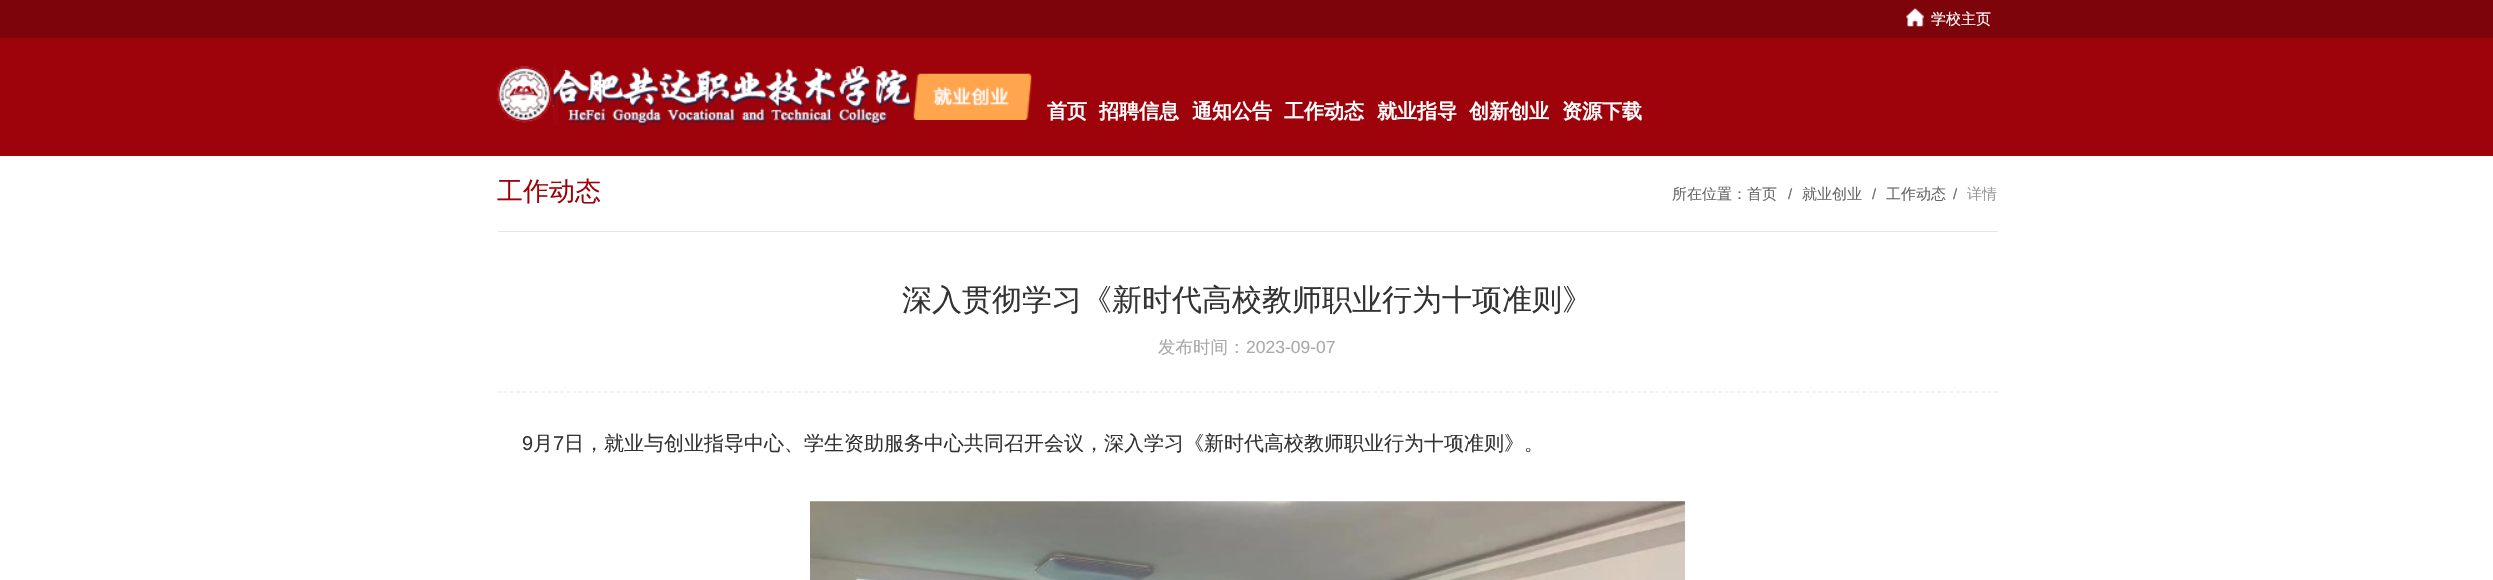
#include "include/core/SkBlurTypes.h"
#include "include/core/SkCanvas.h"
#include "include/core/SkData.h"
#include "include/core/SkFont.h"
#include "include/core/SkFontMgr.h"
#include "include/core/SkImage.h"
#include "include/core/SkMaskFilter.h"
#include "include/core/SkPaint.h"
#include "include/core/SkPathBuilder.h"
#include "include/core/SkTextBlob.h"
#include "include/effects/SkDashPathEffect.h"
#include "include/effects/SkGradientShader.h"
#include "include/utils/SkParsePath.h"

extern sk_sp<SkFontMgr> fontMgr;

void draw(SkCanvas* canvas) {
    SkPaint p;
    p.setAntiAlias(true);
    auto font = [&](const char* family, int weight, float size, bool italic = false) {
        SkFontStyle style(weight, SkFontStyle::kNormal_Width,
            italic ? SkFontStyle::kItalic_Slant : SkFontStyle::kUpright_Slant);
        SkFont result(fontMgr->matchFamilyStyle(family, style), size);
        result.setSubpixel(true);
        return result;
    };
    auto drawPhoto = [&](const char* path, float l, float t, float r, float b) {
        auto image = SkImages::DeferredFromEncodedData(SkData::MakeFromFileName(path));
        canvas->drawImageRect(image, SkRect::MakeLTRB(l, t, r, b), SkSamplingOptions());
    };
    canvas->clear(0xFFFFFFFF);
    p.setColor(0xFF7D040A);
    canvas->drawRect(SkRect::MakeLTRB(0, 0, 2493, 38), p);
    drawPhoto("media/1.png", 1906, 8, 1924, 27);
    auto font1 = font("WenQuanYi Zen Hei", 500, 15);
    p.setColor(0xFFFFFFFF);
    canvas->drawString("学校主页", 1931, 24, font1, p);
    p.setColor(0xFF9E030B);
    canvas->drawRect(SkRect::MakeLTRB(0, 38, 2493, 156), p);
    drawPhoto("media/2.png", 497, 66, 910, 126);
    drawPhoto("media/3.png", 913, 73, 1032, 120);
    auto font2 = font("WenQuanYi Zen Hei", 700, 20);
    p.setColor(0xFFFFFFFF);
    {
        const struct { const char* s; float x, y; } items[] = {
            {"首页", 1047, 118},
            {"招聘信息", 1099, 118},
            {"通知公告", 1192, 118},
            {"工作动态", 1284, 118},
            {"就业指导", 1377, 118},
            {"创新创业", 1469, 118},
            {"资源下载", 1562, 118},
        };
        for (auto [s, x, y] : items) {
            canvas->drawString(s, x, y, font2, p);
        }
    }
    p.setColor(0xFFE5E5E5);
    canvas->drawRect(SkRect::MakeLTRB(498, 231, 1998, 232), p);
    auto font3 = font("WenQuanYi Zen Hei", 500, 26);
    p.setColor(0xFF9E030B);
    canvas->drawString("工作动态", 497, 200, font3, p);
    p.setColor(0xFF666666);
    canvas->drawString("所在位置：首页", 1672, 199, font1, p);
    auto font4 = font("Liberation Sans", 400, 15);
    canvas->drawString("/", 1788, 199, font4, p);
    canvas->drawString("就业创业", 1802, 199, font1, p);
    canvas->drawString("/", 1872, 199, font4, p);
    canvas->drawString("工作动态", 1886, 199, font1, p);
    canvas->drawString("/", 1953, 199, font4, p);
    p.setColor(0xFF999999);
    canvas->drawString("详情", 1967, 199, font1, p);
    p.setStyle(SkPaint::kStroke_Style);
    p.setStrokeWidth(1.2f);
    p.setColor(0xFFE5E5E5);
    p.setPathEffect(SkDashPathEffect::Make({{3.75f, 2.51f}}, 0));
    canvas->drawPath(SkPathBuilder().moveTo(497.5f, 392).lineTo(1997.5f, 392).detach(), p);
    p.setPathEffect(nullptr);
    auto font5 = font("WenQuanYi Zen Hei", 500, 30);
    p.setStyle(SkPaint::kFill_Style);
    p.setColor(0xFF333333);
    canvas->drawString("深入贯彻学习《新时代高校教师职业行为十项准则》", 902, 310, font5, p);
    auto font6 = font("WenQuanYi Zen Hei", 500, 17.5f);
    p.setColor(0xFFAAAAAA);
    canvas->drawString("发布时间：", 1158, 353, font6, p);
    auto font7 = font("Liberation Sans", 400, 17.5f);
    canvas->drawString("2023-09-07", 1246, 353, font7, p);
    auto font8 = font("Liberation Sans", 400, 20);
    p.setColor(0xFF333333);
    canvas->drawString("9", 522, 450, font8, p);
    auto font9 = font("WenQuanYi Zen Hei", 500, 20);
    canvas->drawString("月", 533, 450, font9, p);
    canvas->drawString("7", 553, 450, font8, p);
    canvas->drawString("日，就业与创业指导中心、学生资助服务中心共同召开会议，深入学习《新时代高校教师职业行为十项准则》。", 564, 450, font9, p);
    drawPhoto("media/4.png", 810, 501, 1685, 580);
}
